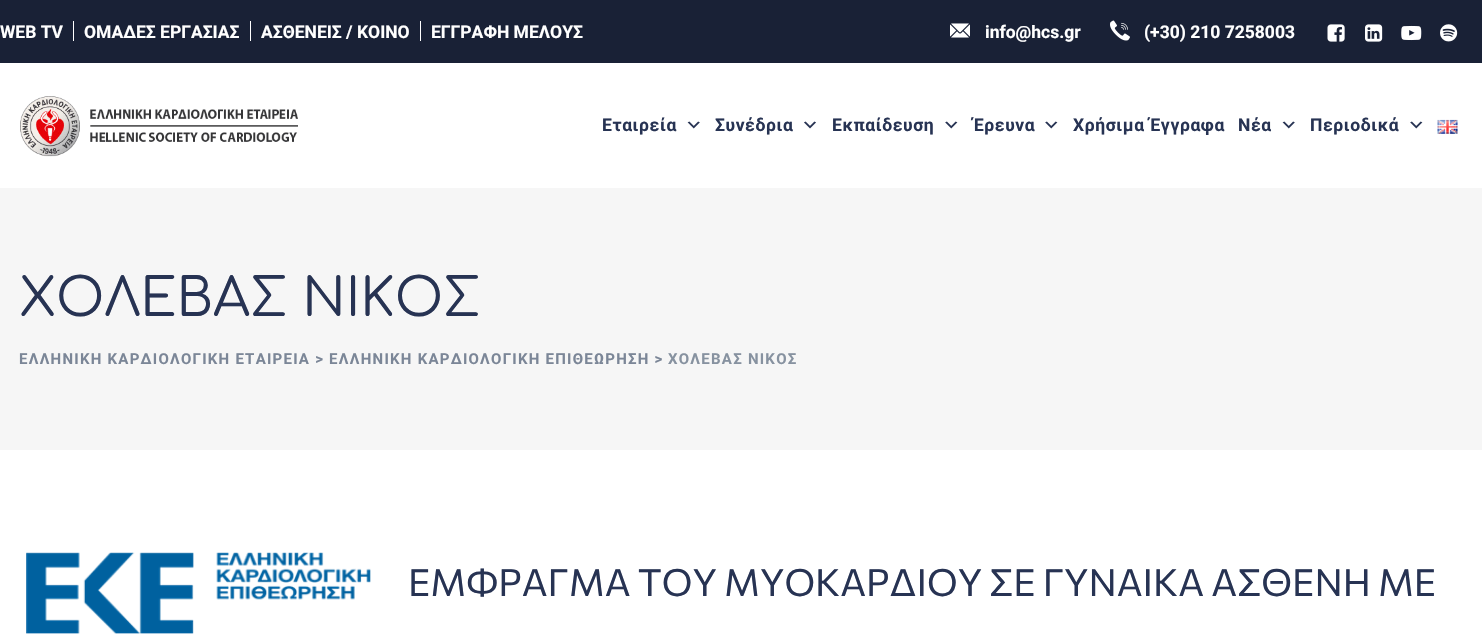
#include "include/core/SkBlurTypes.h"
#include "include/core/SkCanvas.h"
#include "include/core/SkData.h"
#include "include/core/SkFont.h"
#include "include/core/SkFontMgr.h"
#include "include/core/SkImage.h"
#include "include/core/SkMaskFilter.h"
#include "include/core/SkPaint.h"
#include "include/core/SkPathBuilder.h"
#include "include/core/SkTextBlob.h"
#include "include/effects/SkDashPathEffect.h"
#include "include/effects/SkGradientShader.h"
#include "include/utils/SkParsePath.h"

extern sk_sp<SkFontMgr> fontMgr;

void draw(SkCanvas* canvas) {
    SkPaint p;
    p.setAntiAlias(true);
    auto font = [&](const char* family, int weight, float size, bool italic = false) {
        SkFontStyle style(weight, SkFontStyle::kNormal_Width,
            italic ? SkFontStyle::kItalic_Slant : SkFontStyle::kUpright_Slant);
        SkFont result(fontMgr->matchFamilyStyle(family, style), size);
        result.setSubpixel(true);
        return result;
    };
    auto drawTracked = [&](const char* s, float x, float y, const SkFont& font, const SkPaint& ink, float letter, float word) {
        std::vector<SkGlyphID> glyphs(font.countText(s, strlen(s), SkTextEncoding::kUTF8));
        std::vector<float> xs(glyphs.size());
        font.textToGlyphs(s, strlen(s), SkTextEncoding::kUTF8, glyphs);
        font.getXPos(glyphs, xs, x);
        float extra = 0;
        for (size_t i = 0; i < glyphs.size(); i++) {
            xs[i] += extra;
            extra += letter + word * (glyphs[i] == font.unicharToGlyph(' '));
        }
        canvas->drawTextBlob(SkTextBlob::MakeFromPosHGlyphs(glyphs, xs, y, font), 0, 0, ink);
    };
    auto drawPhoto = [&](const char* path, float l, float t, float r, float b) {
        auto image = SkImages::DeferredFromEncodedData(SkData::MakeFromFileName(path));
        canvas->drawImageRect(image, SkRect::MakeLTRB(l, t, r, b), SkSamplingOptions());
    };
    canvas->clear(0xFFFFFFFF);
    p.setColor(0xFF192136);
    canvas->drawRect(SkRect::MakeLTRB(0, 0, 1482, 63), p);
    auto font1 = font("Roboto", 700, 17.5f);
    p.setColor(0xFFFFFFFF);
    canvas->drawString("WEB TV", 0, 38, font1, p);
    canvas->drawRect(SkRect::MakeLTRB(73, 21, 74, 41), p);
    canvas->drawString("ΟΜΑΔΕΣ ΕΡΓΑΣΙΑΣ", 84, 38, font1, p);
    canvas->drawRect(SkRect::MakeLTRB(250, 21, 251, 41), p);
    canvas->drawString("ΑΣΘΕΝΕΙΣ / ΚΟΙΝΟ", 261, 38, font1, p);
    canvas->drawRect(SkRect::MakeLTRB(420, 21, 421, 41), p);
    canvas->drawString("ΕΓΓΡΑΦΗ ΜΕΛΟΥΣ", 431, 38, font1, p);
    drawPhoto("media/1.png", 950, 23, 970, 38);
    canvas->drawString("info@hcs.gr", 985, 38, font1, p);
    drawPhoto("media/2.png", 1110, 20, 1130, 41);
    canvas->drawString("(+30) 210 7258003", 1144, 38, font1, p);
    drawPhoto("media/3.png", 1327, 24, 1345, 42);
    drawPhoto("media/4.png", 1365, 24, 1383, 42);
    drawPhoto("media/5.png", 1401, 25, 1422, 41);
    drawPhoto("media/6.png", 1440, 24, 1458, 42);
    drawPhoto("media/7.png", 20, 96, 298, 157);
    p.setColor(0xFF273353);
    drawTracked("Εταιρεία", 602, 131, font1, p, 0.6f, 0);
    drawPhoto("media/8.png", 687, 121, 700, 129);
    drawTracked("Συνέδρια", 715, 131, font1, p, 0.6f, 0);
    drawPhoto("media/9.png", 804, 121, 816, 129);
    drawTracked("Εκπαίδευση", 832, 131, font1, p, 0.6f, 0);
    drawPhoto("media/10.png", 945, 121, 958, 129);
    drawTracked("Έρευνα", 973, 131, font1, p, 0.6f, 0);
    drawPhoto("media/10.png", 1045, 121, 1058, 129);
    drawTracked("Χρήσιμα Έγγραφα", 1073, 131, font1, p, 0.6f, 0);
    drawTracked("Νέα", 1238, 131, font1, p, 0.6f, 0);
    drawPhoto("media/8.png", 1282, 121, 1295, 129);
    drawTracked("Περιοδικά", 1310, 131, font1, p, 0.6f, 0);
    drawPhoto("media/10.png", 1410, 121, 1423, 129);
    drawPhoto("media/11.png", 1437, 119, 1458, 134);
    p.setColor(0xFFF6F6F6);
    canvas->drawRect(SkRect::MakeLTRB(0, 188, 1482, 450), p);
    auto font2 = font("Comfortaa", 400, 52.5f);
    p.setColor(0xFF273353);
    canvas->drawString("ΧΟΛΕΒΑΣ ΝΙΚΟΣ", 19, 316, font2, p);
    auto font3 = font("Roboto", 700, 15);
    p.setColor(0xFF7B8697);
    drawTracked("ΕΛΛΗΝΙΚΗ ΚΑΡΔΙΟΛΟΓΙΚΗ ΕΤΑΙΡΕΙΑ > ΕΛΛΗΝΙΚΗ ΚΑΡΔΙΟΛΟΓΙΚΗ ΕΠΙΘΕΩΡΗΣΗ >", 19, 364, font3, p, 1.25f, 0);
    p.setColor(0xFF8792A0);
    drawTracked("ΧΟΛΕΒΑΣ ΝΙΚΟΣ", 668, 364, font3, p, 1.25f, 0);
    drawPhoto("media/12.png", 26, 552, 371, 634);
    auto font4 = font("Commissioner", 400, 37.5f);
    p.setColor(0xFF273353);
    canvas->drawString("ΕΜΦΡΑΓΜΑ ΤΟΥ ΜΥΟΚΑΡΔΙΟΥ ΣΕ ΓΥΝΑΙΚΑ ΑΣΘΕΝΗ ΜΕ", 408, 596, font4, p);
}
